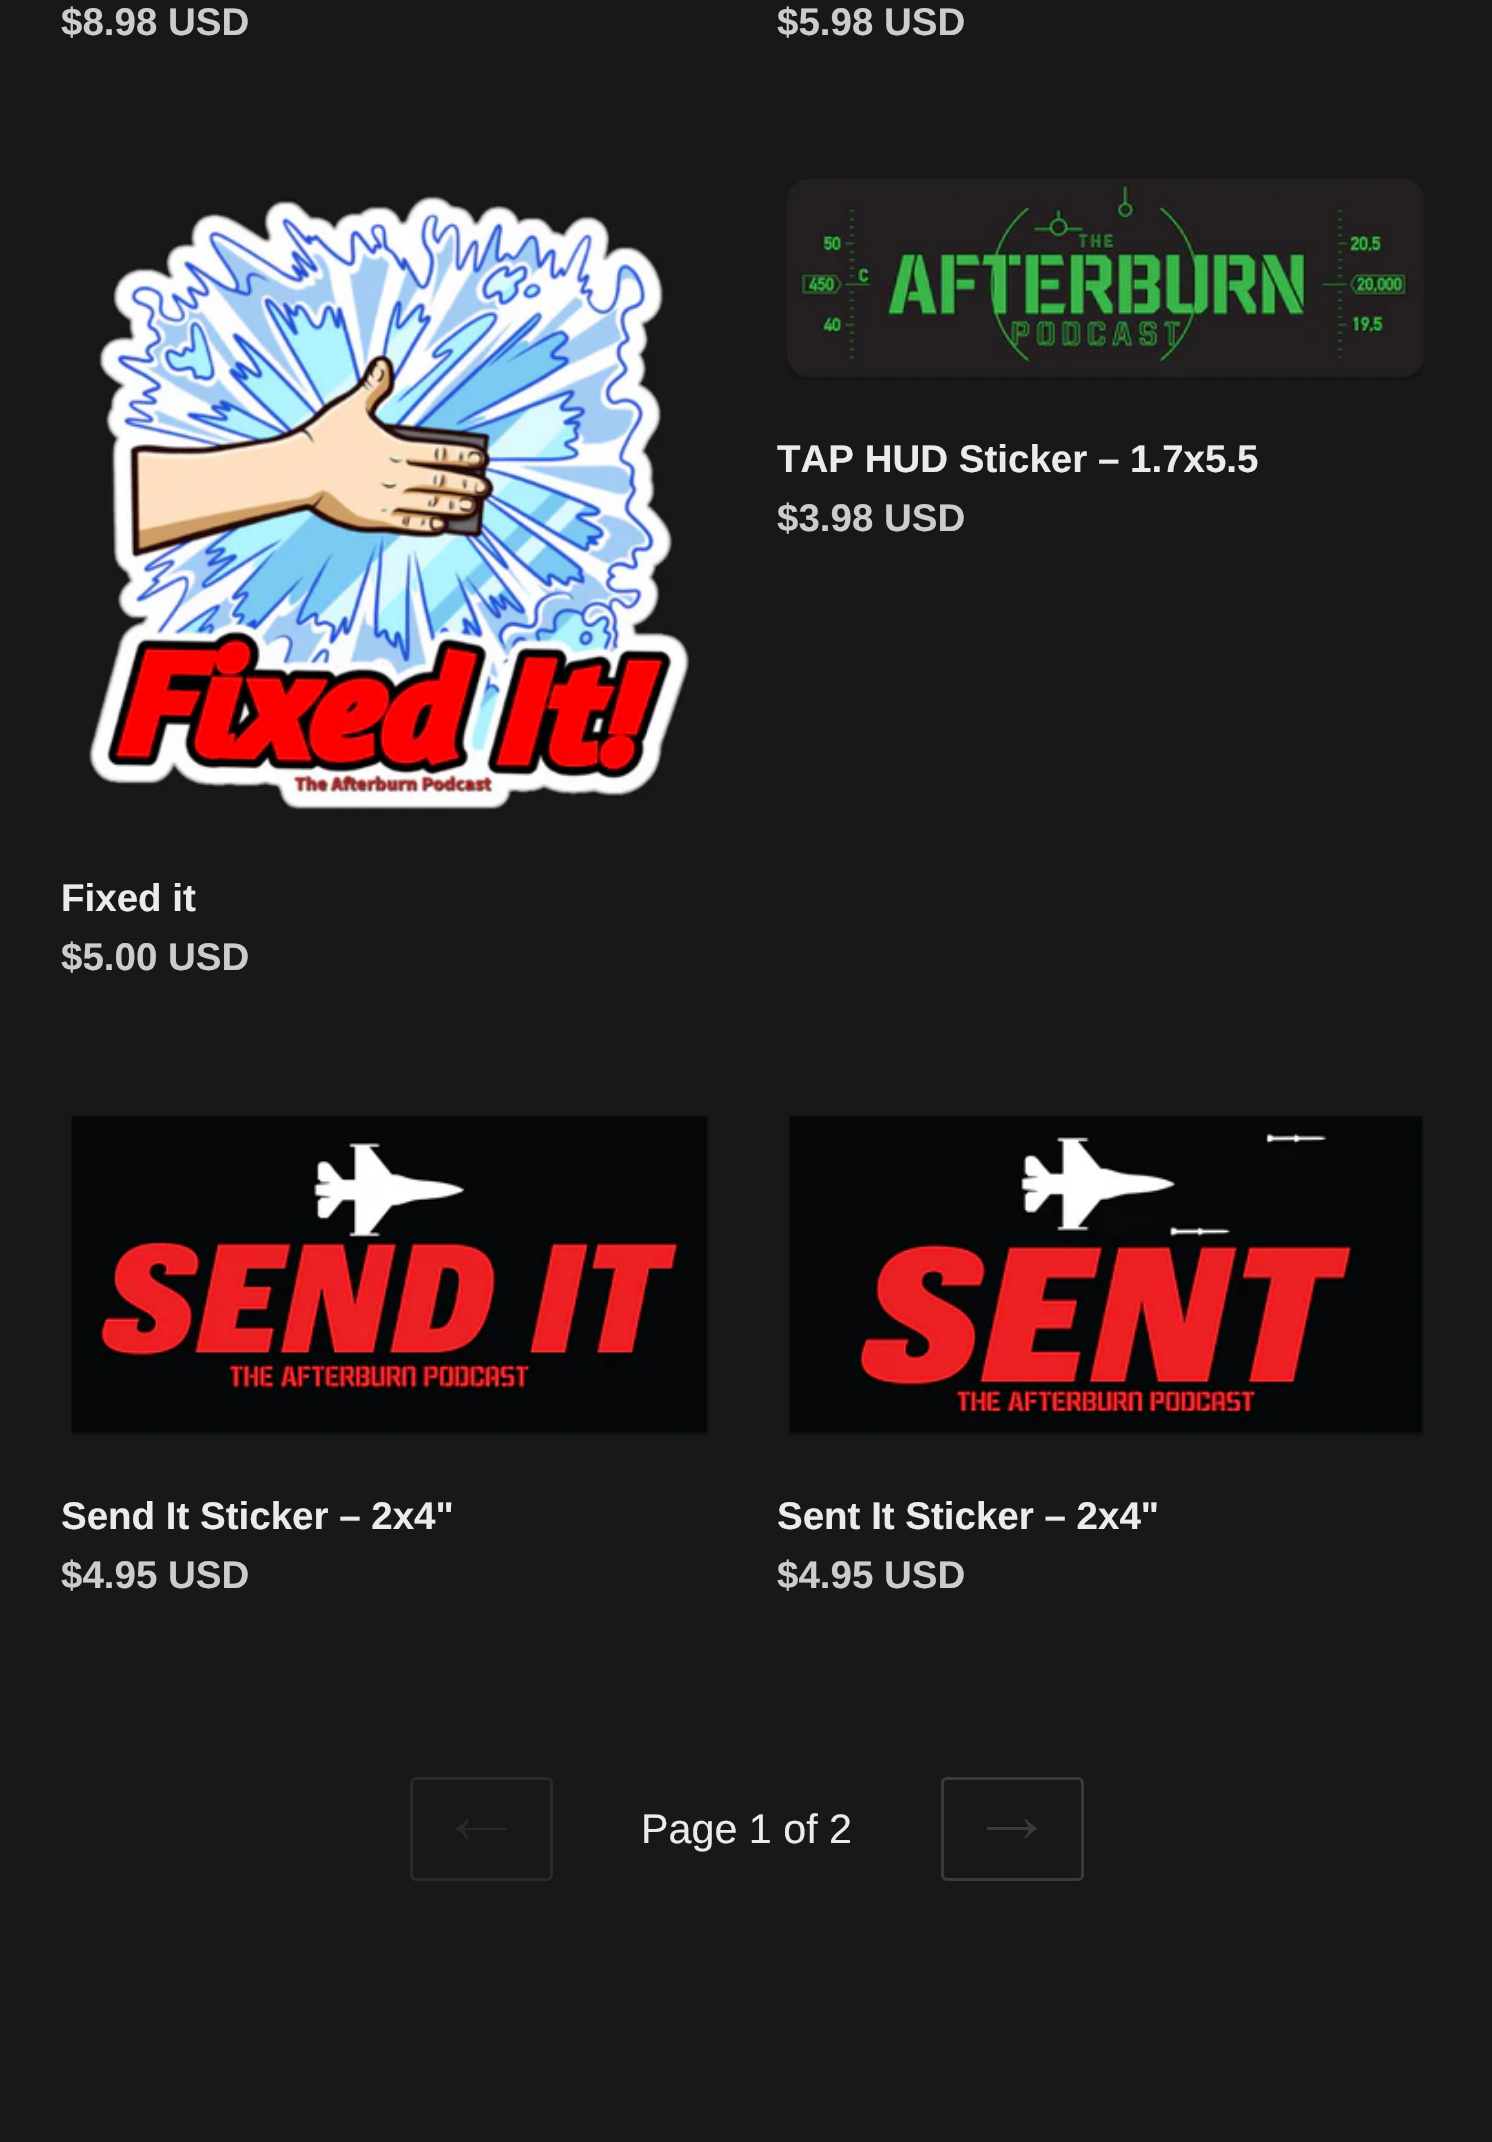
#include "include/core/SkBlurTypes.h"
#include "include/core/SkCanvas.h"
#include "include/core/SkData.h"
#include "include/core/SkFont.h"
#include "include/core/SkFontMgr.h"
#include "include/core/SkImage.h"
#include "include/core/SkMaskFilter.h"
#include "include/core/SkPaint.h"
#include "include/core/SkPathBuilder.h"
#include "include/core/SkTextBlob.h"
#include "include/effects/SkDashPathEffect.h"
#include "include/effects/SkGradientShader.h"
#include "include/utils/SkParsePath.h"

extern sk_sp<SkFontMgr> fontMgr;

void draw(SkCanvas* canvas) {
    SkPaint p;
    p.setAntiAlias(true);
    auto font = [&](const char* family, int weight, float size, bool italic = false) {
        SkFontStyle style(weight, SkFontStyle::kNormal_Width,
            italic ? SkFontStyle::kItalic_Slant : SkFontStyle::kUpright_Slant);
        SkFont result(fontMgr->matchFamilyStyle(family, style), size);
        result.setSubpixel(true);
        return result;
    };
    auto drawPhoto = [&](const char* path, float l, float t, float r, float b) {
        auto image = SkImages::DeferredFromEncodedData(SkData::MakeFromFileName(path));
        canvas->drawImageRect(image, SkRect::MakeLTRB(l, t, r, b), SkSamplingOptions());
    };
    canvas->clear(0xFF181818);
    auto font1 = font("Liberation Sans", 700, 38.5f);
    p.setColor(0xFFCCCCCC);
    canvas->drawString("$8.98 USD", 61, 35, font1, p);
    canvas->drawString("$5.98 USD", 777, 35, font1, p);
    drawPhoto("media/1.png", 786, 178, 1424, 380);
    p.setColor(0xFFEBEBEB);
    canvas->drawString("TAP HUD Sticker – 1.7x5.5", 777, 472, font1, p);
    p.setColor(0xFFCCCCCC);
    canvas->drawString("$3.98 USD", 777, 531, font1, p);
    drawPhoto("media/2.png", 89, 195, 690, 810);
    p.setColor(0xFFEBEBEB);
    canvas->drawString("Fixed it", 61, 911, font1, p);
    p.setColor(0xFFCCCCCC);
    canvas->drawString("$5.00 USD", 61, 970, font1, p);
    drawPhoto("media/3.png", 71, 1115, 709, 1437);
    p.setColor(0xFFEBEBEB);
    canvas->drawString("Send It Sticker – 2x4\"", 61, 1529, font1, p);
    p.setColor(0xFFCCCCCC);
    canvas->drawString("$4.95 USD", 61, 1588, font1, p);
    drawPhoto("media/4.png", 788, 1115, 1424, 1437);
    p.setColor(0xFFEBEBEB);
    canvas->drawString("Sent It Sticker – 2x4\"", 777, 1529, font1, p);
    p.setColor(0xFFCCCCCC);
    canvas->drawString("$4.95 USD", 777, 1588, font1, p);
    p.setStyle(SkPaint::kStroke_Style);
    p.setStrokeWidth(3);
    p.setColor(0xFF292929);
    canvas->drawRoundRect(SkRect::MakeLTRB(411.5f, 1778.5f, 551.5f, 1879.5f), 4.5f, 4.5f, p);
    p.setStyle(SkPaint::kFill_Style);
    canvas->drawPath(SkPathBuilder(SkPathFillType::kEvenOdd).moveTo(467, 1839).cubicTo(464, 1835, 460, 1831, 456, 1830).lineTo(456, 1828).cubicTo(460, 1826, 464, 1823, 467, 1819).lineTo(469, 1819).cubicTo(467, 1823, 466, 1826, 464, 1828).lineTo(507, 1828).lineTo(507, 1830).lineTo(464, 1830).lineTo(469, 1839).close().detach(), p);
    auto font2 = font("Liberation Sans", 400, 41.25f);
    p.setColor(0xFFEBEBEB);
    canvas->drawString("Page 1 of 2", 641, 1843, font2, p);
    p.setStyle(SkPaint::kStroke_Style);
    p.setColor(0xFF3A3A3A);
    canvas->drawRoundRect(SkRect::MakeLTRB(942.5f, 1778.5f, 1082.5f, 1879.5f), 4.5f, 4.5f, p);
    p.setStyle(SkPaint::kFill_Style);
    canvas->drawPath(SkPathBuilder(SkPathFillType::kEvenOdd).moveTo(1026, 1819).cubicTo(1029, 1822, 1033, 1826, 1037, 1828).lineTo(1037, 1829).cubicTo(1033, 1831, 1029, 1835, 1026, 1838).lineTo(1024, 1838).cubicTo(1026, 1835, 1028, 1832, 1029, 1830).lineTo(987, 1830).lineTo(987, 1827).lineTo(1029, 1827).lineTo(1024, 1819).close().detach(), p);
}
